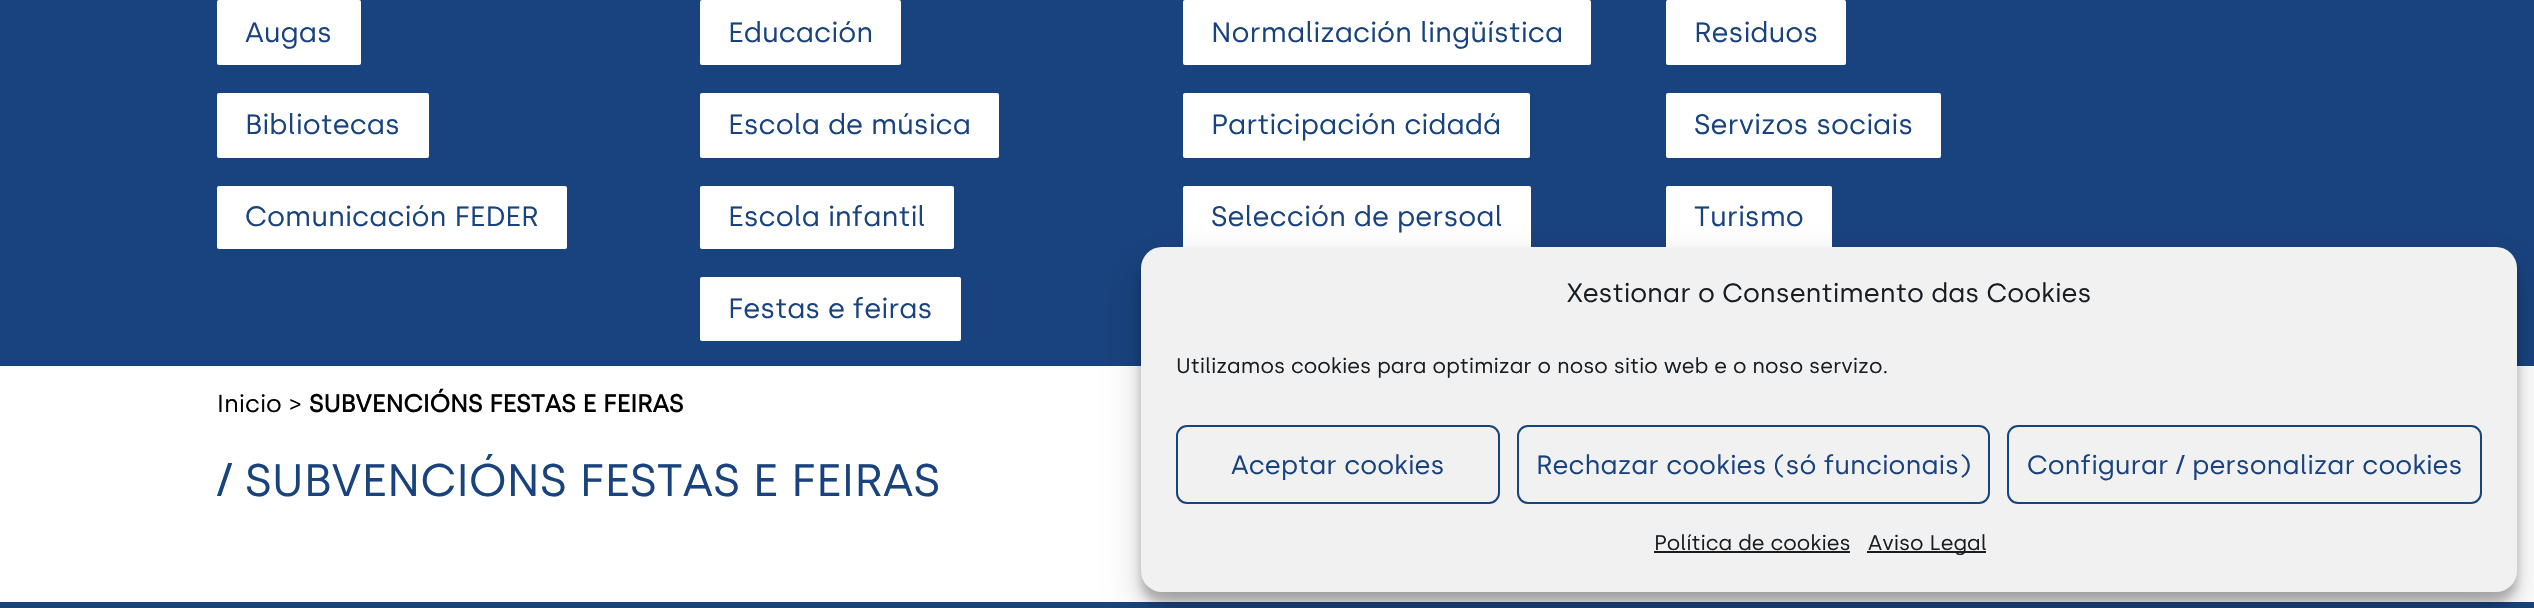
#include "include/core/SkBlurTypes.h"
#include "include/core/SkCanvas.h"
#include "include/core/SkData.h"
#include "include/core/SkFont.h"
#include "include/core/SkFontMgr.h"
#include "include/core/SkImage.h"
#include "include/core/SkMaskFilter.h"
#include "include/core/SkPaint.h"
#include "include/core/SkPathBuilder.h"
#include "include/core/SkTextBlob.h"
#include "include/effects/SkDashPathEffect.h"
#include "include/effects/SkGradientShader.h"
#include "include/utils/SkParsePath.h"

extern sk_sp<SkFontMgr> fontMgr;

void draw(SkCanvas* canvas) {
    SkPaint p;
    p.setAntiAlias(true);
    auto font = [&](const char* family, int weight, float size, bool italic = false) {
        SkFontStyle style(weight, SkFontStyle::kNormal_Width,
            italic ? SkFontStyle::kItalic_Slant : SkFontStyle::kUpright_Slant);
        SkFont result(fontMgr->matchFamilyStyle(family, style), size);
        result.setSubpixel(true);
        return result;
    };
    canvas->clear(0xFFFFFFFF);
    p.setColor(0xFF19437E);
    canvas->drawRect(SkRect::MakeLTRB(0, 0, 2534, 366), p);
    p.setColor(0xFFFFFFFF);
    canvas->drawRoundRect(SkRect::MakeLTRB(217, 0, 361, 65), 2, 2, p);
    auto font1 = font("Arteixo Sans", 400, 28);
    p.setColor(0xFF19437E);
    canvas->drawString("Augas", 245, 42, font1, p);
    p.setColor(0xFFFFFFFF);
    canvas->drawRoundRect(SkRect::MakeLTRB(217, 93, 429, 158), 2, 2, p);
    p.setColor(0xFF19437E);
    canvas->drawString("Bibliotecas", 245, 134, font1, p);
    p.setColor(0xFFFFFFFF);
    canvas->drawRoundRect(SkRect::MakeLTRB(217, 186, 567, 249), 2, 2, p);
    p.setColor(0xFF19437E);
    canvas->drawString("Comunicación FEDER", 245, 226, font1, p);
    p.setColor(0xFFFFFFFF);
    canvas->drawRoundRect(SkRect::MakeLTRB(700, 0, 901, 65), 2, 2, p);
    p.setColor(0xFF19437E);
    canvas->drawString("Educación", 728, 42, font1, p);
    p.setColor(0xFFFFFFFF);
    canvas->drawRoundRect(SkRect::MakeLTRB(700, 93, 999, 158), 2, 2, p);
    p.setColor(0xFF19437E);
    canvas->drawString("Escola de música", 728, 134, font1, p);
    p.setColor(0xFFFFFFFF);
    canvas->drawRoundRect(SkRect::MakeLTRB(700, 186, 954, 249), 2, 2, p);
    p.setColor(0xFF19437E);
    canvas->drawString("Escola infantil", 728, 226, font1, p);
    p.setColor(0xFFFFFFFF);
    canvas->drawRoundRect(SkRect::MakeLTRB(700, 277, 961, 341), 2, 2, p);
    p.setColor(0xFF19437E);
    canvas->drawString("Festas e feiras", 728, 318, font1, p);
    p.setColor(0xFFFFFFFF);
    canvas->drawRoundRect(SkRect::MakeLTRB(1183, 0, 1591, 65), 2, 2, p);
    p.setColor(0xFF19437E);
    canvas->drawString("Normalización lingüística", 1211, 42, font1, p);
    p.setColor(0xFFFFFFFF);
    canvas->drawRoundRect(SkRect::MakeLTRB(1183, 93, 1530, 158), 2, 2, p);
    p.setColor(0xFF19437E);
    canvas->drawString("Participación cidadá", 1211, 134, font1, p);
    p.setColor(0xFFFFFFFF);
    canvas->drawRoundRect(SkRect::MakeLTRB(1183, 186, 1531, 249), 2, 2, p);
    p.setColor(0xFF19437E);
    canvas->drawString("Selección de persoal", 1211, 226, font1, p);
    p.setColor(0xFFFFFFFF);
    canvas->drawRoundRect(SkRect::MakeLTRB(1666, 0, 1846, 65), 2, 2, p);
    p.setColor(0xFF19437E);
    canvas->drawString("Residuos", 1694, 42, font1, p);
    p.setColor(0xFFFFFFFF);
    canvas->drawRoundRect(SkRect::MakeLTRB(1666, 93, 1941, 158), 2, 2, p);
    p.setColor(0xFF19437E);
    canvas->drawString("Servizos sociais", 1694, 134, font1, p);
    p.setColor(0xFFFFFFFF);
    canvas->drawRoundRect(SkRect::MakeLTRB(1666, 186, 1832, 249), 2, 2, p);
    p.setColor(0xFF19437E);
    canvas->drawString("Turismo", 1694, 226, font1, p);
    auto font2 = font("Arteixo Sans", 400, 24.5f);
    p.setColor(0xFF000000);
    canvas->drawString("Inicio >", 217, 412, font2, p);
    auto font3 = font("Arteixo Sans", 700, 24.5f);
    canvas->drawString("SUBVENCIÓNS FESTAS E FEIRAS", 309, 412, font3, p);
    auto font4 = font("Arteixo Sans", 400, 45.5f);
    p.setColor(0xFF19437E);
    canvas->drawString("/ SUBVENCIÓNS FESTAS E FEIRAS", 217, 496, font4, p);
    canvas->drawRect(SkRect::MakeLTRB(0, 602, 2534, 608), p);
    p.setColor(0x3B000000);
    p.setMaskFilter(SkMaskFilter::MakeBlur(kNormal_SkBlurStyle, 5));
    canvas->drawRoundRect(SkRect::MakeLTRB(1141, 257, 2517, 602), 21, 21, p);
    p.setMaskFilter(nullptr);
    p.setColor(0x30000000);
    p.setMaskFilter(SkMaskFilter::MakeBlur(kNormal_SkBlurStyle, 17.5f));
    canvas->drawRoundRect(SkRect::MakeLTRB(1141, 264, 2517, 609), 21, 21, p);
    p.setMaskFilter(nullptr);
    p.setColor(0xFFF1F1F1);
    canvas->drawRoundRect(SkRect::MakeLTRB(1141, 247, 2517, 592), 21, 21, p);
    auto font5 = font("Arteixo Sans", 400, 26.25f);
    p.setColor(0xFF191E23);
    canvas->drawString("Xestionar o Consentimento das Cookies", 1567, 302, font5, p);
    auto font6 = font("Arteixo Sans", 400, 21);
    canvas->drawString("Utilizamos cookies para optimizar o noso sitio web e o noso servizo.", 1176, 373, font6, p);
    p.setStyle(SkPaint::kStroke_Style);
    p.setStrokeWidth(2);
    p.setColor(0xFF19437E);
    canvas->drawRoundRect(SkRect::MakeLTRB(1177, 426, 1499, 503), 10, 10, p);
    p.setStyle(SkPaint::kFill_Style);
    canvas->drawString("Aceptar cookies", 1231, 474, font5, p);
    p.setStyle(SkPaint::kStroke_Style);
    p.setColor(0xFF17437E);
    canvas->drawRoundRect(SkRect::MakeLTRB(1518, 426, 1989, 503), 10, 10, p);
    p.setStyle(SkPaint::kFill_Style);
    p.setColor(0xFF19437E);
    canvas->drawString("Rechazar cookies (só funcionais)", 1536, 474, font5, p);
    p.setStyle(SkPaint::kStroke_Style);
    canvas->drawRoundRect(SkRect::MakeLTRB(2008, 426, 2481, 503), 10, 10, p);
    p.setStyle(SkPaint::kFill_Style);
    canvas->drawString("Configurar / personalizar cookies", 2027, 474, font5, p);
    p.setColor(0xFF191E23);
    canvas->drawString("Política de cookies", 1654, 550, font6, p);
    canvas->drawRect(SkRect::MakeLTRB(1654, 551, 1850, 553), p);
    canvas->drawRect(SkRect::MakeLTRB(1867, 551, 1986, 553), p);
    canvas->drawString("Aviso Legal", 1868, 550, font6, p);
}
